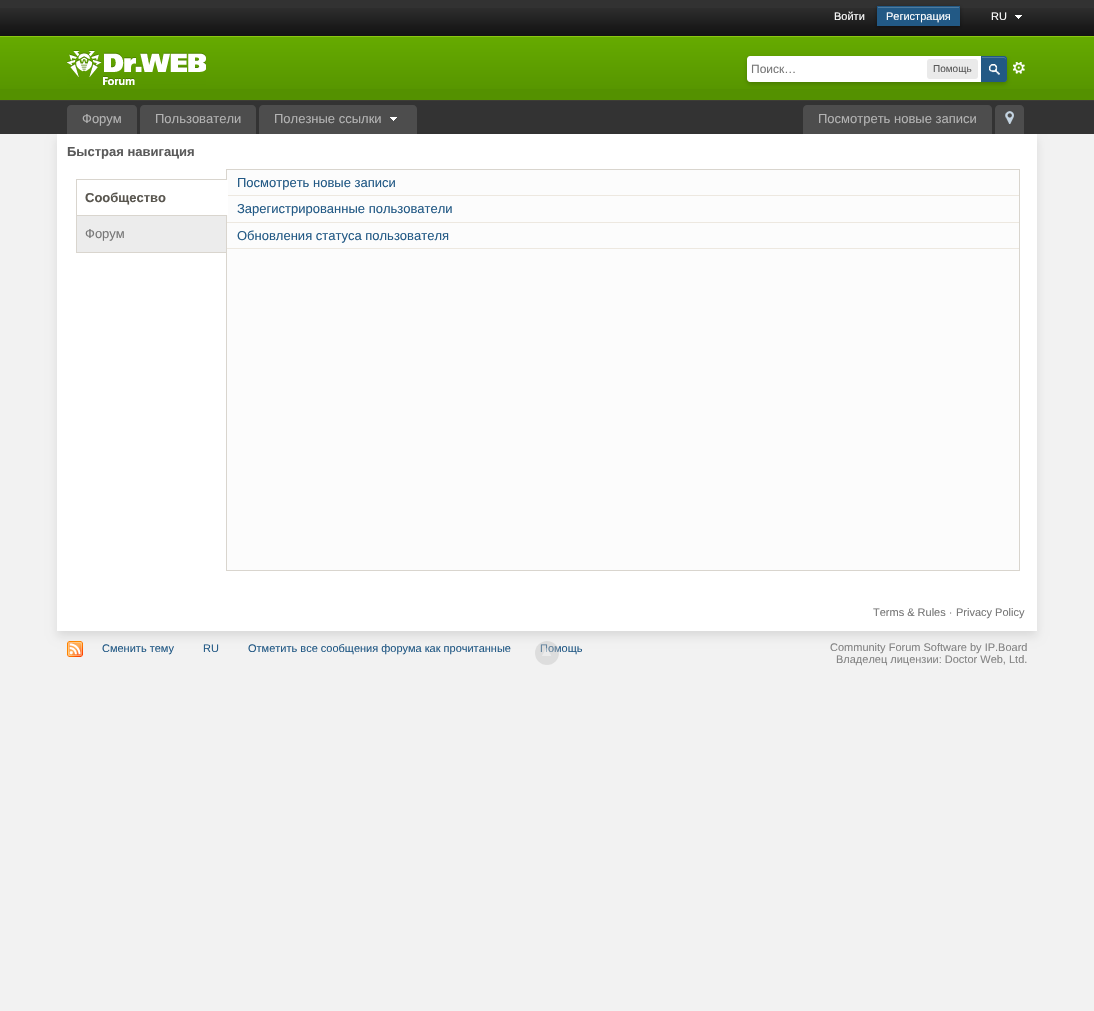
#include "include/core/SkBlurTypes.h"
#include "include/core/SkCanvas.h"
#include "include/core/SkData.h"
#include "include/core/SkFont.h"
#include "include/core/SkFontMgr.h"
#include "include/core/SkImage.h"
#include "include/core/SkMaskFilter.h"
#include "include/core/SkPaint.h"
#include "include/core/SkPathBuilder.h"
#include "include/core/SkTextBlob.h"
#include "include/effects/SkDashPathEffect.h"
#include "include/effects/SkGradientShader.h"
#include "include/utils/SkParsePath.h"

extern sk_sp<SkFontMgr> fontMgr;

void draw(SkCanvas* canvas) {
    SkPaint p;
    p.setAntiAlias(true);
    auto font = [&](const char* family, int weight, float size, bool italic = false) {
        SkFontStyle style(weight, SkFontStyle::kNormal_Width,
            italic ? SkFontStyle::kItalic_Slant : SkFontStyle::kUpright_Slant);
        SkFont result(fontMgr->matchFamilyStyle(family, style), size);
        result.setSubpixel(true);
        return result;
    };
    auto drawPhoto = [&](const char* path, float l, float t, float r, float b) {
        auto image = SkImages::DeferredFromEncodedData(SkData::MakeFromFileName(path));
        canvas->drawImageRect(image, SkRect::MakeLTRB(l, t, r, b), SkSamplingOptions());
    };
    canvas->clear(0xFFF2F2F2);
    p.setColor(0xFF323232);
    canvas->drawRect(SkRect::MakeLTRB(0, 0, 1094, 8), p);
    drawPhoto("media/1.png", 0, 8, 1094, 36);
    auto font1 = font("Liberation Sans", 400, 11);
    p.setColor(0xFFFFFFFF);
    canvas->drawString("Войти", 834, 20, font1, p);
    p.setColor(0x66000000);
    p.setMaskFilter(SkMaskFilter::MakeBlur(kNormal_SkBlurStyle, 2));
    canvas->drawRect(SkRect::MakeLTRB(877, 7, 960, 27), p);
    p.setMaskFilter(nullptr);
    p.setColor(0xFF225985);
    canvas->drawRect(SkRect::MakeLTRB(877, 6, 960, 26), p);
    p.setColor(0xFF4E7A9D);
    canvas->drawRect(SkRect::MakeLTRB(878, 7, 959, 8), p);
    p.setColor(0xFFFFFFFF);
    canvas->drawString("Регистрация", 886, 20, font1, p);
    canvas->drawString("RU", 991, 20, font1, p);
    drawPhoto("media/2.png", 1015, 15, 1022, 19);
    p.setColor(0xFF549100);
    canvas->drawRect(SkRect::MakeLTRB(0, 89, 1094, 100), p);
    drawPhoto("media/3.png", 0, 36, 1094, 89);
    p.setColor(0xFF3D3C37);
    canvas->drawRect(SkRect::MakeLTRB(0, 100, 1094, 101), p);
    drawPhoto("media/4.png", 67, 50, 206, 85);
    drawPhoto("media/6.png", 1013, 62, 1025, 74);
    p.setColor(0x33000000);
    p.setMaskFilter(SkMaskFilter::MakeBlur(kNormal_SkBlurStyle, 2));
    canvas->drawRoundRect(SkRect::MakeLTRB(747, 58, 1007, 84), 4, 4, p);
    p.setMaskFilter(nullptr);
    p.setColor(0xFFFFFFFF);
    canvas->drawPath(SkPathBuilder().moveTo(750, 56).lineTo(1003, 56).cubicTo(1005, 56, 1007, 58, 1007, 60).lineTo(1007, 78).cubicTo(1007, 80, 1005, 82, 1003, 82).lineTo(750, 82).cubicTo(748.5f, 82, 747, 80.5f, 747, 79).lineTo(747, 59).cubicTo(747, 57.5f, 748.5f, 56, 750, 56).close().detach(), p);
    auto font2 = font("Liberation Sans", 400, 12);
    p.setColor(0xFF777777);
    canvas->drawString("Поиск…", 751, 73, font2, p);
    p.setColor(0xFFEAEAEA);
    canvas->drawRoundRect(SkRect::MakeLTRB(927, 59, 978, 79), 3, 3, p);
    auto font3 = font("Liberation Sans", 400, 10);
    p.setColor(0xFF5A5A5A);
    canvas->drawString("Помощь", 933, 72, font3, p);
    p.setColor(0xFF225985);
    canvas->drawPath(SkPathBuilder().moveTo(981, 56).lineTo(1004, 56).cubicTo(1005.5f, 56, 1007, 57.5f, 1007, 59).lineTo(1007, 79).cubicTo(1007, 80.5f, 1005.5f, 82, 1004, 82).lineTo(981, 82).close().detach(), p);
    drawPhoto("media/5.png", 989, 64, 1000, 75);
    p.setColor(0xFF4E7A9D);
    canvas->drawPath(SkPathBuilder().moveTo(982, 58).lineTo(1004, 58).cubicTo(1005, 58, 1006, 59, 1006, 60).lineTo(1006, 59).cubicTo(1006, 58, 1005, 57, 1004, 57).lineTo(982, 57).close().detach(), p);
    p.setStyle(SkPaint::kStroke_Style);
    p.setStrokeWidth(1);
    p.setColor(0xFF225985);
    canvas->drawPath(SkPathBuilder().moveTo(981.5f, 56.5f).lineTo(1004, 56.5f).cubicTo(1005.5f, 56.5f, 1006.5f, 57.5f, 1006.5f, 59).lineTo(1006.5f, 79).cubicTo(1006.5f, 80.5f, 1005.5f, 81.5f, 1004, 81.5f).lineTo(981.5f, 81.5f).close().detach(), p);
    p.setStyle(SkPaint::kFill_Style);
    p.setColor(0xFF333333);
    canvas->drawRect(SkRect::MakeLTRB(0, 101, 1094, 134), p);
    p.setColor(0x1A000000);
    p.setMaskFilter(SkMaskFilter::MakeBlur(kNormal_SkBlurStyle, 4.5f));
    canvas->drawRect(SkRect::MakeLTRB(57, 139, 1037, 636), p);
    p.setMaskFilter(nullptr);
    p.setColor(0xFF4D4D4D);
    canvas->drawPath(SkPathBuilder().moveTo(71, 105).lineTo(133, 105).cubicTo(135, 105, 137, 107, 137, 109).lineTo(137, 134).lineTo(67, 134).lineTo(67, 109).cubicTo(67, 107, 69, 105, 71, 105).close().detach(), p);
    auto font4 = font("Liberation Sans", 400, 13);
    p.setColor(0xFFB3B3B3);
    canvas->drawString("Форум", 82, 123, font4, p);
    p.setColor(0xFF4D4D4D);
    canvas->drawPath(SkPathBuilder().moveTo(144, 105).lineTo(252, 105).cubicTo(254, 105, 256, 107, 256, 109).lineTo(256, 134).lineTo(140, 134).lineTo(140, 109).cubicTo(140, 107, 142, 105, 144, 105).close().detach(), p);
    p.setColor(0xFFB3B3B3);
    canvas->drawString("Пользователи", 155, 123, font4, p);
    p.setColor(0xFF4D4D4D);
    canvas->drawPath(SkPathBuilder().moveTo(263, 105).lineTo(413, 105).cubicTo(415, 105, 417, 107, 417, 109).lineTo(417, 134).lineTo(259, 134).lineTo(259, 109).cubicTo(259, 107, 261, 105, 263, 105).close().detach(), p);
    p.setColor(0xFFB3B3B3);
    canvas->drawString("Полезные ссылки", 274, 123, font4, p);
    drawPhoto("media/7.png", 390, 117, 397, 121);
    p.setColor(0xFF4D4D4D);
    canvas->drawPath(SkPathBuilder().moveTo(807, 105).lineTo(988, 105).cubicTo(990, 105, 992, 107, 992, 109).lineTo(992, 134).lineTo(803, 134).lineTo(803, 109).cubicTo(803, 107, 805, 105, 807, 105).close().detach(), p);
    p.setColor(0xFFB3B3B3);
    canvas->drawString("Посмотреть новые записи", 818, 123, font4, p);
    p.setColor(0xFF4D4D4D);
    canvas->drawPath(SkPathBuilder().moveTo(999, 105).lineTo(1020, 105).cubicTo(1022, 105, 1024, 107, 1024, 109).lineTo(1024, 134).lineTo(995, 134).lineTo(995, 109).cubicTo(995, 107, 997, 105, 999, 105).close().detach(), p);
    drawPhoto("media/8.png", 1005, 111, 1014, 124);
    p.setColor(0xFFFFFFFF);
    canvas->drawRect(SkRect::MakeLTRB(57, 134, 1037, 631), p);
    auto font5 = font("Liberation Sans", 700, 13);
    p.setColor(0xFF5A5A5A);
    canvas->drawString("Быстрая навигация", 67, 156, font5, p);
    {
        const struct { float l, t, r, b; SkColor color; } items[] = {
            {76, 179, 226, 180, 0xFFD9D5CE},
            {76, 179, 77, 253, 0xFFD9D5CE},
            {77, 215, 226, 216, 0xFFD9D5CE},
        };
        for (auto [l, t, r, b, color] : items) {
            p.setColor(color);
            canvas->drawRect(SkRect::MakeLTRB(l, t, r, b), p);
        }
    }
    p.setColor(0xFFFCFCFC);
    canvas->drawRect(SkRect::MakeLTRB(226.5f, 169.5f, 1019.5f, 570.5f), p);
    p.setStyle(SkPaint::kStroke_Style);
    p.setColor(0xFFD9D5CE);
    canvas->drawRect(SkRect::MakeLTRB(226.5f, 169.5f, 1019.5f, 570.5f), p);
    p.setStyle(SkPaint::kFill_Style);
    p.setColor(0xFFEDE8E0);
    canvas->drawRect(SkRect::MakeLTRB(227, 195, 1019, 196), p);
    p.setColor(0xFFFFFFFF);
    canvas->drawRect(SkRect::MakeLTRB(226, 180, 228, 215), p);
    p.setColor(0xFF59564F);
    canvas->drawString("Сообщество", 85, 202, font5, p);
    p.setColor(0xFFECECEC);
    canvas->drawRect(SkRect::MakeLTRB(77, 216, 226, 252), p);
    p.setColor(0xFFD9D5CE);
    canvas->drawRect(SkRect::MakeLTRB(77, 252, 226, 253), p);
    p.setColor(0xFF777777);
    canvas->drawString("Форум", 85, 238, font4, p);
    p.setColor(0xFF225985);
    canvas->drawString("Посмотреть новые записи", 237, 187, font4, p);
    p.setColor(0xFFEDE8E0);
    canvas->drawRect(SkRect::MakeLTRB(227, 222, 1019, 223), p);
    p.setColor(0xFF225985);
    canvas->drawString("Зарегистрированные пользователи", 237, 213, font4, p);
    p.setColor(0xFFEDE8E0);
    canvas->drawRect(SkRect::MakeLTRB(227, 248, 1019, 249), p);
    p.setColor(0xFF225985);
    canvas->drawString("Обновления статуса пользователя", 237, 240, font4, p);
    p.setColor(0xFF777777);
    canvas->drawString("Terms & Rules ·", 873, 616, font1, p);
    canvas->drawString("Privacy Policy", 956, 616, font1, p);
    p.setColor(0xFF225985);
    canvas->drawString("Помощь", 540, 652, font1, p);
    p.setColor(0x66BDBDBD);
    canvas->drawCircle(547, 653, 12, p);
    drawPhoto("media/9.png", 542, 648, 551, 656);
    drawPhoto("media/10.png", 67, 641, 83, 657);
    p.setColor(0xFF225985);
    {
        const struct { const char* s; float x, y; } items[] = {
            {"Сменить тему", 102, 652},
            {"RU", 203, 652},
            {"Отметить все сообщения форума как прочитанные", 248, 652},
        };
        for (auto [s, x, y] : items) {
            canvas->drawString(s, x, y, font1, p);
        }
    }
    p.setColor(0xFF848484);
    canvas->drawString("Community Forum Software by IP.Board", 830, 651, font1, p);
    canvas->drawString("Владелец лицензии: Doctor Web, Ltd.", 836, 663, font1, p);
}
